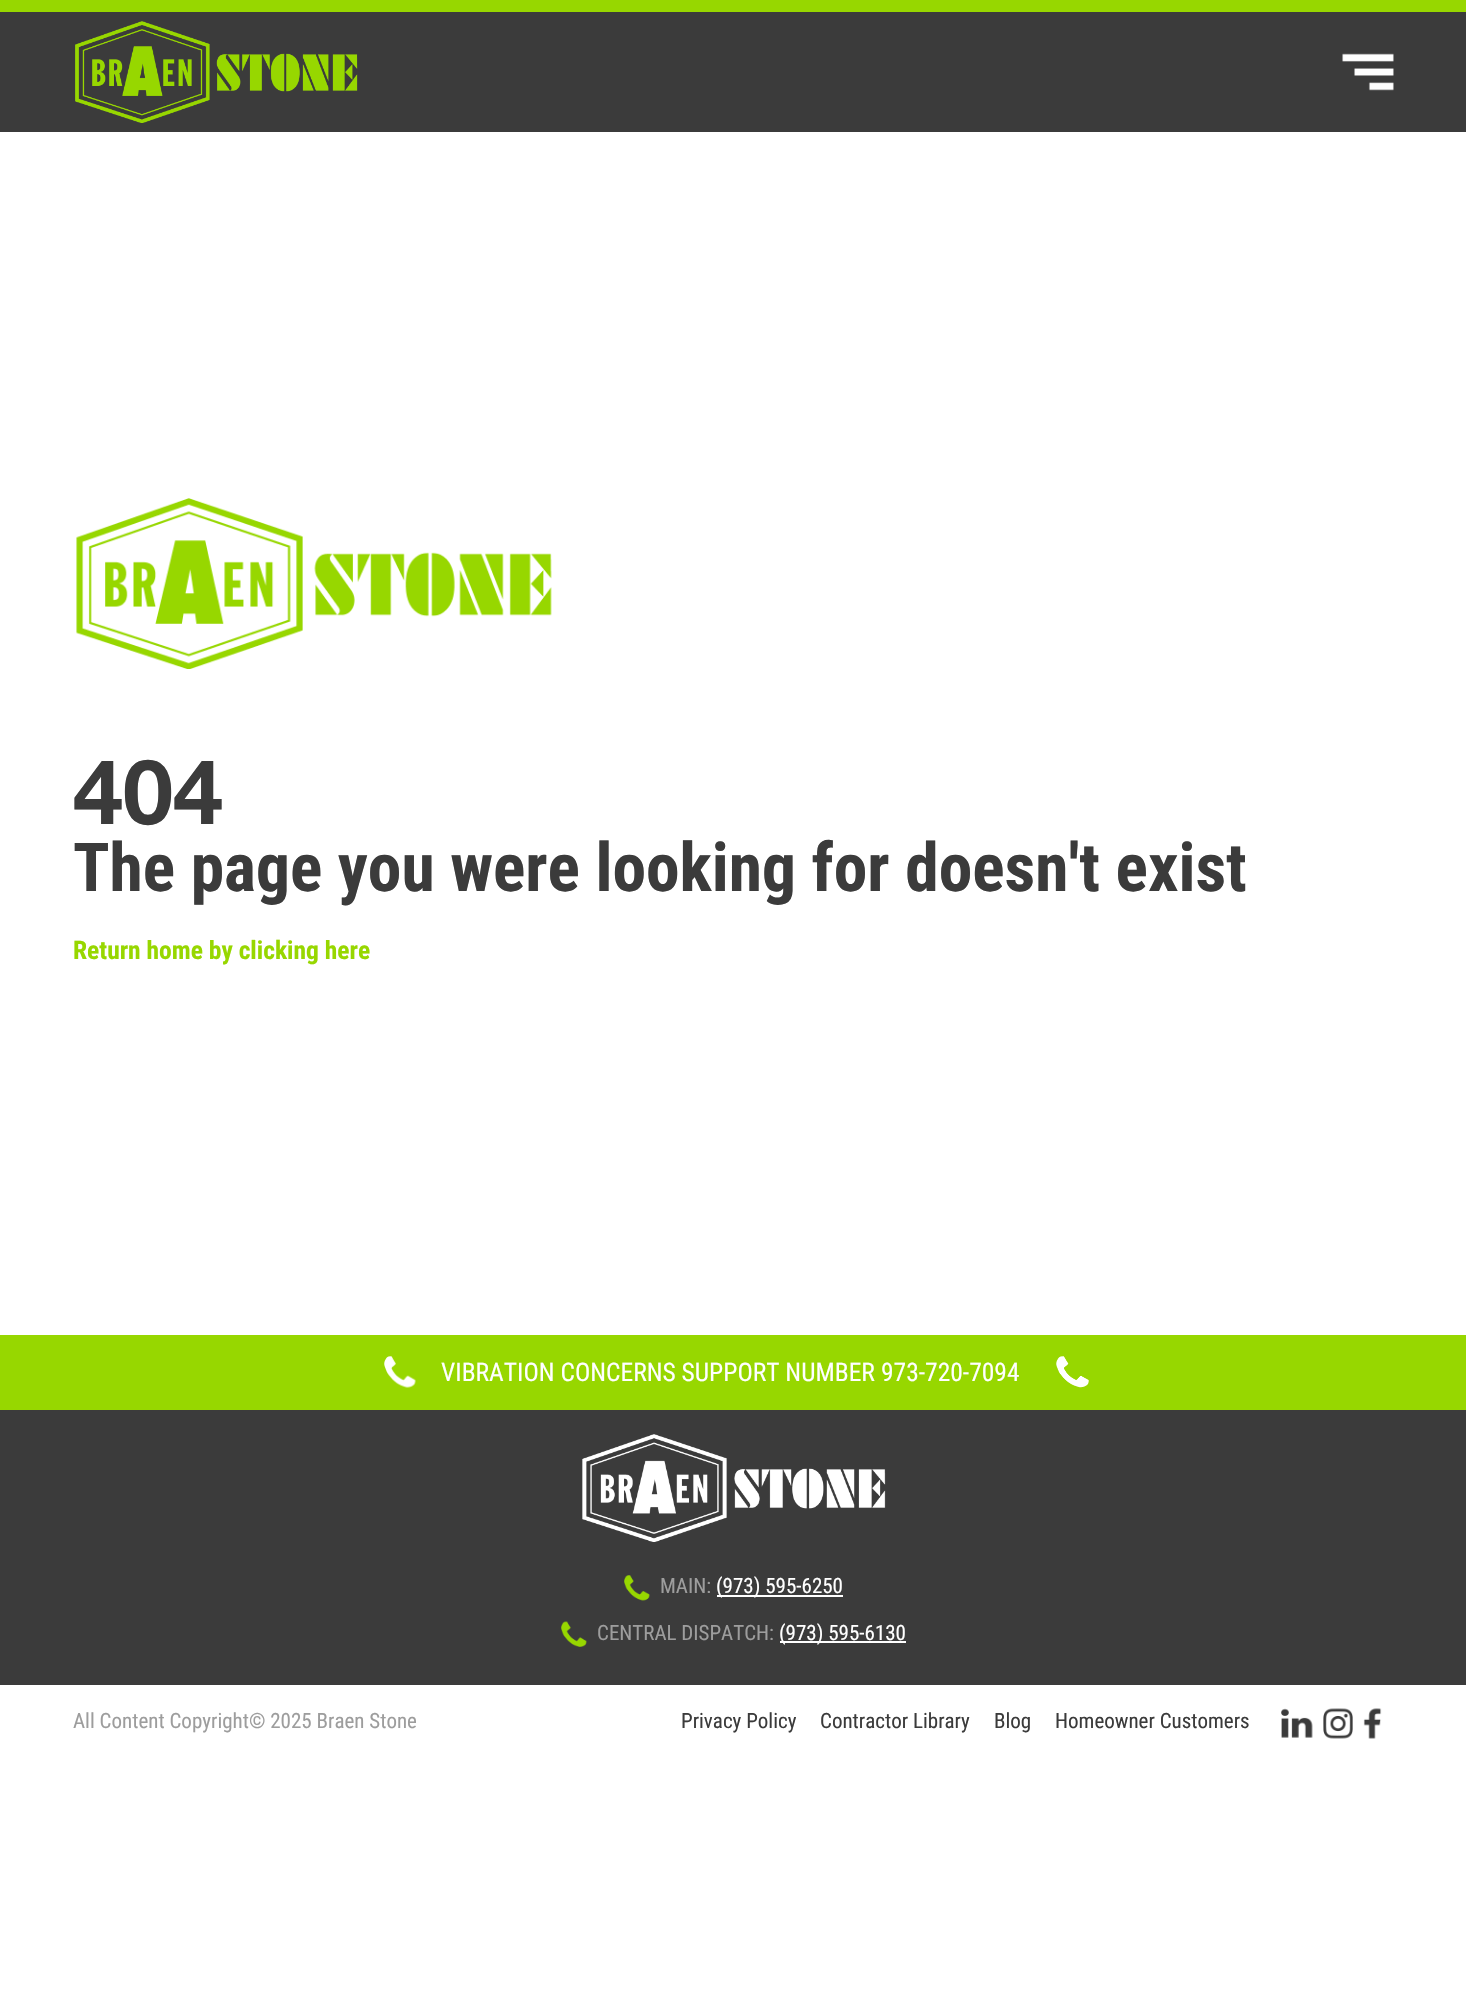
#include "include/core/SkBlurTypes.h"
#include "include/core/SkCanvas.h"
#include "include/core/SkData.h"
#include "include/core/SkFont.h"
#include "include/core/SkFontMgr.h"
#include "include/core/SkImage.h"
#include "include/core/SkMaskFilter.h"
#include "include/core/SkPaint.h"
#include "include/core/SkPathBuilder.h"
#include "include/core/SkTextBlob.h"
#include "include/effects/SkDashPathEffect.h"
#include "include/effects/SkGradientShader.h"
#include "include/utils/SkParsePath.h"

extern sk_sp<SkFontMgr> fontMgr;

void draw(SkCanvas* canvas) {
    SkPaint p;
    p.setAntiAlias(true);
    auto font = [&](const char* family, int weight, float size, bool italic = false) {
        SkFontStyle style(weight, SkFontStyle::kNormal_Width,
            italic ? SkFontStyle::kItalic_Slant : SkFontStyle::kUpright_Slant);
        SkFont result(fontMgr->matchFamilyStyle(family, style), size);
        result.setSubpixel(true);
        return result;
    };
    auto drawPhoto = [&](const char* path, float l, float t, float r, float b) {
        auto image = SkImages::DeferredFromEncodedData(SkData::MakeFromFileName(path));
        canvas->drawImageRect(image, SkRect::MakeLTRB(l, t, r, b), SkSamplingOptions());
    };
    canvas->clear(0xFFFFFFFF);
    p.setColor(0xFF3B3B3B);
    canvas->drawRect(SkRect::MakeLTRB(0, 12, 1466, 132), p);
    p.setColor(0xFF97D700);
    canvas->drawRect(SkRect::MakeLTRB(0, 0, 1466, 12), p);
    drawPhoto("media/1.png", 75, 21, 358, 123);
    drawPhoto("media/2.png", 1342, 53, 1394, 91);
    drawPhoto("media/3.png", 76, 498, 552, 669);
    auto font1 = font("Helvetica Neue", 700, 90);
    p.setColor(0xFF3B3B3B);
    canvas->drawString("404", 73, 824, font1, p);
    auto font2 = font("Roboto Condensed", 700, 67.5f);
    canvas->drawString("The page you were looking for doesn't exist", 73, 891, font2, p);
    auto font3 = font("Roboto Condensed", 700, 25.5f);
    p.setColor(0xFF97D700);
    canvas->drawString("Return home by clicking here", 73, 959, font3, p);
    canvas->drawRect(SkRect::MakeLTRB(0, 1335, 1466, 1410), p);
    drawPhoto("media/4.png", 384, 1356, 416, 1388);
    auto font4 = font("Roboto Condensed", 400, 25.5f);
    p.setColor(0xFFFFFFFF);
    canvas->drawString("VIBRATION CONCERNS SUPPORT NUMBER", 441, 1381, font4, p);
    canvas->drawString("973-720-7094", 881, 1381, font4, p);
    drawPhoto("media/5.png", 1056, 1356, 1089, 1388);
    p.setColor(0xFF3B3B3B);
    canvas->drawRect(SkRect::MakeLTRB(0, 1410, 1466, 1685), p);
    drawPhoto("media/6.png", 582, 1434, 886, 1542);
    drawPhoto("media/7.png", 624, 1575, 650, 1601);
    auto font5 = font("Roboto Condensed", 400, 21);
    p.setColor(0xFF9D9D9D);
    canvas->drawString("MAIN:", 660, 1593, font5, p);
    p.setColor(0xFFFFFFFF);
    canvas->drawRect(SkRect::MakeLTRB(717, 1595, 843, 1597), p);
    canvas->drawString("(973) 595-6250", 716, 1593, font5, p);
    drawPhoto("media/8.png", 561, 1621, 587, 1647);
    p.setColor(0xFF9D9D9D);
    canvas->drawString("CENTRAL DISPATCH:", 597, 1640, font5, p);
    p.setColor(0xFFFFFFFF);
    canvas->drawRect(SkRect::MakeLTRB(780, 1641, 906, 1643), p);
    canvas->drawString("(973) 595-6130", 779, 1640, font5, p);
    p.setColor(0xFF9D9D9D);
    canvas->drawString("All Content Copyright© 2025 Braen Stone", 73, 1728, font5, p);
    p.setColor(0xFF3B3B3B);
    {
        const struct { const char* s; float x, y; } items[] = {
            {"Privacy Policy", 681, 1728},
            {"Contractor Library", 820, 1728},
            {"Blog", 994, 1728},
            {"Homeowner Customers", 1055, 1728},
        };
        for (auto [s, x, y] : items) {
            canvas->drawString(s, x, y, font5, p);
        }
    }
    drawPhoto("media/9.png", 1281, 1708, 1313, 1738);
    drawPhoto("media/10.png", 1323, 1708, 1353, 1739);
    drawPhoto("media/11.png", 1363, 1708, 1382, 1739);
}
